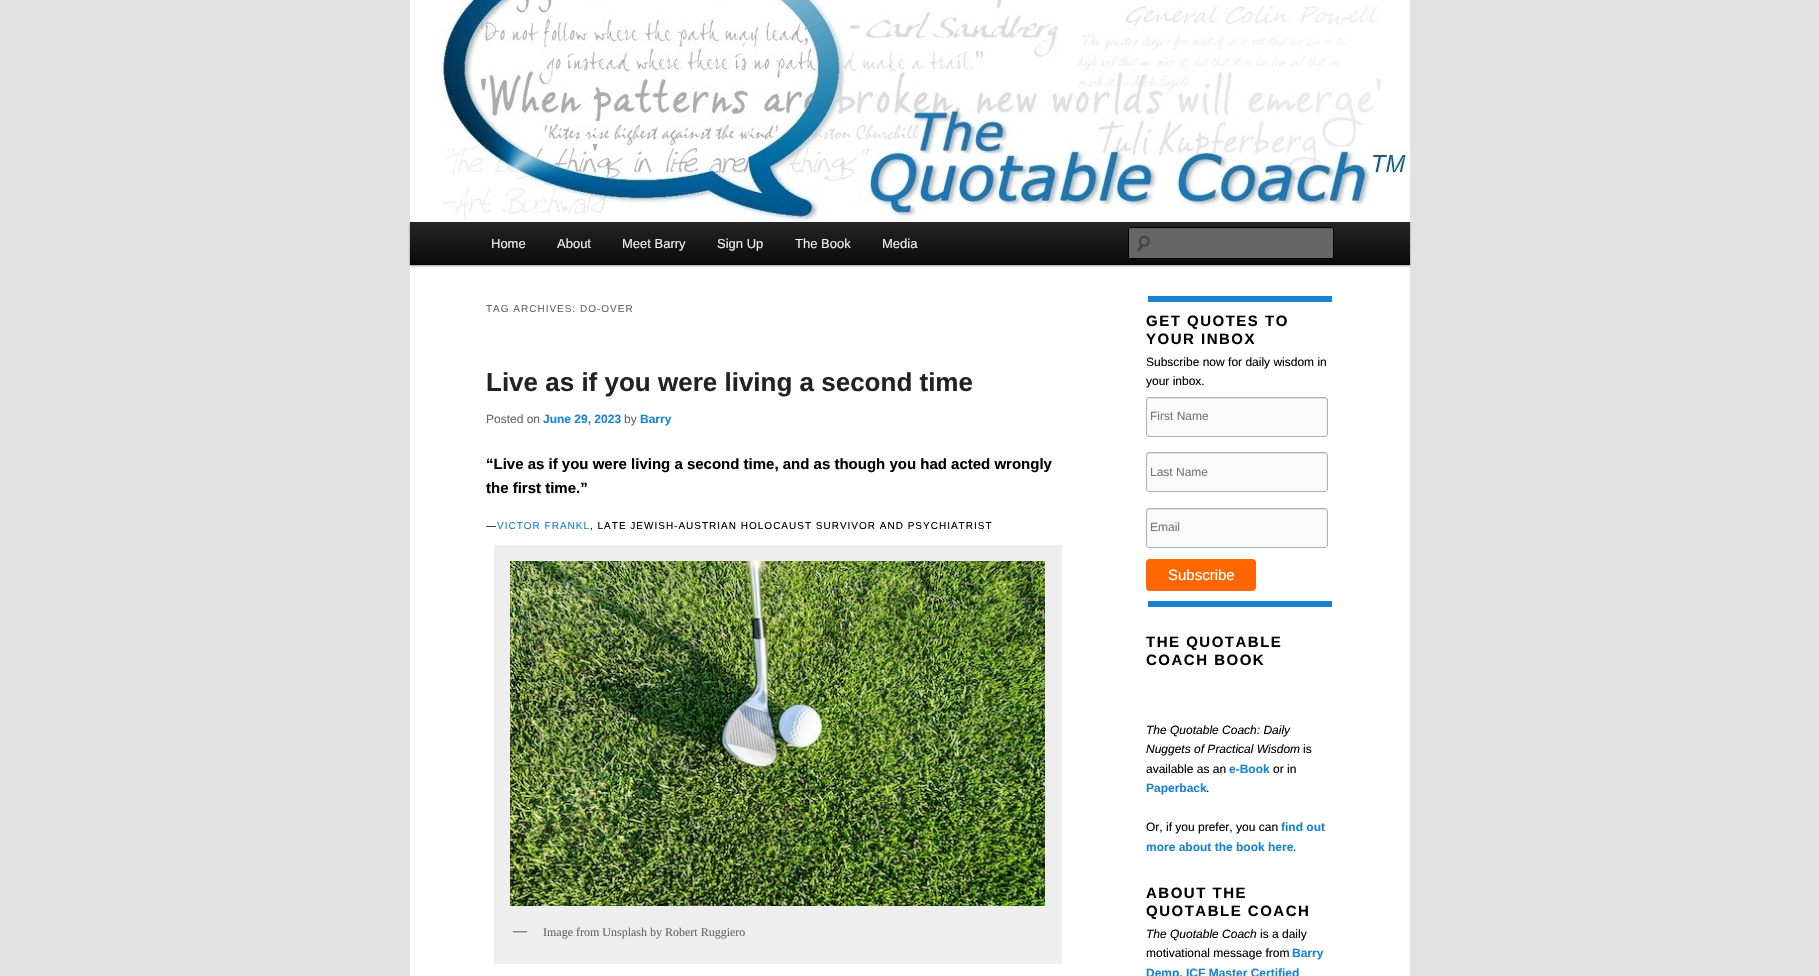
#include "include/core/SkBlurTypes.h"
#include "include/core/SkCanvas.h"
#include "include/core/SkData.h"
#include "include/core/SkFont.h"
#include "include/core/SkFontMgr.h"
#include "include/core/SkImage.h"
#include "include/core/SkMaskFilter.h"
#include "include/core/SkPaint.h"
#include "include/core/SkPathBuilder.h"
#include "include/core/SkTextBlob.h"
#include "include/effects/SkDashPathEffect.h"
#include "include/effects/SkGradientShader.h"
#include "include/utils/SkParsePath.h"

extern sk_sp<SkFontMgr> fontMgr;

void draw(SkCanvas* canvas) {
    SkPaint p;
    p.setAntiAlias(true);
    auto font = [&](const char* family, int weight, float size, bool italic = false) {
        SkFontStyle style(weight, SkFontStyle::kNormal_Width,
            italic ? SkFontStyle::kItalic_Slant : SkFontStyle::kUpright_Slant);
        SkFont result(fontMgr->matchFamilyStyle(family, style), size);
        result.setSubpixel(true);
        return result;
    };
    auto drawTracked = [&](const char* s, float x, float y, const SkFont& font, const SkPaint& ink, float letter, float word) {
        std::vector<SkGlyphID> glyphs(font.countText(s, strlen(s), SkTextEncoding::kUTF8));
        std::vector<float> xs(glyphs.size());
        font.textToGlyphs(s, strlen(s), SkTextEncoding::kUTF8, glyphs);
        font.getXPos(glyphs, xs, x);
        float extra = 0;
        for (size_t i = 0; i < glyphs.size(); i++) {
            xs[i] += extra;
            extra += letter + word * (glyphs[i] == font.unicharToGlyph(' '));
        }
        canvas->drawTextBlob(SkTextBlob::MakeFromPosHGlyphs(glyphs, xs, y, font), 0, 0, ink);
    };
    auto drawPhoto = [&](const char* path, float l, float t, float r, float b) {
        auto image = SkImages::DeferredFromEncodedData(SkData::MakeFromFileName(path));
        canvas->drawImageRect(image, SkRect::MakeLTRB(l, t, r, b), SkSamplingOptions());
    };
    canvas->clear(0xFFE2E2E2);
    p.setColor(0xFFFFFFFF);
    canvas->drawRect(SkRect::MakeLTRB(410, 265, 1410, 976), p);
    p.setColor(0x66000000);
    p.setMaskFilter(SkMaskFilter::MakeBlur(kNormal_SkBlurStyle, 1));
    canvas->drawRect(SkRect::MakeLTRB(410, 223, 1410, 266), p);
    p.setMaskFilter(nullptr);
    drawPhoto("media/1.png", 410, 0, 1410, 222);
    {
        const SkColor colors[] = {0xFF252525, 0xFF0A0A0A};
        const float stops[] = {0, 1};
        const SkPoint ends[] = {{910, 222}, {910, 265}};
        p.setShader(SkGradientShader::MakeLinear(ends, colors, stops, 2, SkTileMode::kClamp));
        p.setAlpha(255);
    }
    canvas->drawRect(SkRect::MakeLTRB(410, 222, 1410, 265), p);
    auto font1 = font("Liberation Sans", 400, 13);
    p.setShader(nullptr);
    p.setColor(0xFFEEEEEE);
    {
        const struct { const char* s; float x, y; } items[] = {
            {"Home", 491, 248},
            {"About", 557, 248},
            {"Meet Barry", 622, 248},
            {"Sign Up", 717, 248},
            {"The Book", 795, 248},
            {"Media", 882, 248},
        };
        for (auto [s, x, y] : items) {
            canvas->drawString(s, x, y, font1, p);
        }
    }
    p.setColor(0xFF666666);
    canvas->drawRoundRect(SkRect::MakeLTRB(1128, 227, 1334, 259), 2, 2, p);
    drawPhoto("media/2.png", 1137, 235, 1150, 252);
    p.setColor(0xFF5C5C5C);
    canvas->drawPath(SkPathBuilder().moveTo(1130, 229).lineTo(1333, 229).lineTo(1333, 230).lineTo(1333, 228).lineTo(1332, 228).lineTo(1130, 228).cubicTo(1129, 228, 1129, 229, 1129, 230).cubicTo(1129, 229, 1129, 229, 1130, 229).close().detach(), p);
    p.setStyle(SkPaint::kStroke_Style);
    p.setStrokeWidth(1);
    p.setColor(0xFF000000);
    canvas->drawRoundRect(SkRect::MakeLTRB(1128.5f, 227.5f, 1333.5f, 258.5f), 1.5f, 1.5f, p);
    auto font2 = font("Liberation Sans", 400, 10);
    p.setStyle(SkPaint::kFill_Style);
    p.setColor(0xFF666666);
    drawTracked("TAG ARCHIVES: DO-OVER", 486, 312, font2, p, 1, 0);
    auto font3 = font("Liberation Sans", 700, 26);
    p.setColor(0xFF222222);
    canvas->drawString("Live as if you were living a second time", 486, 391, font3, p);
    auto font4 = font("Liberation Sans", 400, 12);
    p.setColor(0xFF666666);
    canvas->drawString("Posted on", 486, 423, font4, p);
    auto font5 = font("Liberation Sans", 700, 12);
    p.setColor(0xFF1982D1);
    canvas->drawString("June 29, 2023", 543, 423, font5, p);
    p.setColor(0xFF666666);
    canvas->drawString("by", 624, 423, font4, p);
    p.setColor(0xFF1982D1);
    canvas->drawString("Barry", 640, 423, font5, p);
    auto font6 = font("Liberation Sans", 700, 15);
    p.setColor(0xFF000000);
    canvas->drawString("“Live as if you were living a second time, and as though you had acted wrongly", 486, 469, font6, p);
    canvas->drawString("the first time.”", 486, 493, font6, p);
    drawTracked("—", 486, 529, font2, p, 1, 0);
    p.setColor(0xFF1982D1);
    drawTracked("VICTOR FRANKL", 497, 529, font2, p, 1, 0);
    p.setColor(0xFF000000);
    drawTracked(", LATE JEWISH-AUSTRIAN HOLOCAUST SURVIVOR AND PSYCHIATRIST", 590, 529, font2, p, 1, 0);
    p.setColor(0xFFEEEEEE);
    canvas->drawRect(SkRect::MakeLTRB(494, 545, 1062, 964), p);
    drawPhoto("media/3.png", 510, 561, 1045, 906);
    auto font7 = font("Liberation Serif", 700, 14);
    p.setColor(0xFF666666);
    canvas->drawString("—", 513, 935, font7, p);
    auto font8 = font("Liberation Serif", 400, 12);
    canvas->drawString("Image from Unsplash by Robert Ruggiero", 543, 936, font8, p);
    p.setColor(0xFF1982D1);
    canvas->drawRect(SkRect::MakeLTRB(1148, 296, 1332, 302), p);
    canvas->drawRect(SkRect::MakeLTRB(1148, 601, 1332, 607), p);
    p.setColor(0xFF000000);
    drawTracked("GET QUOTES TO", 1146, 326, font6, p, 1.5f, 0);
    drawTracked("YOUR INBOX", 1146, 344, font6, p, 1.5f, 0);
    canvas->drawString("Subscribe now for daily wisdom in", 1146, 366, font4, p);
    canvas->drawString("your inbox.", 1146, 385, font4, p);
    p.setColor(0xFFFAFAFA);
    canvas->drawRoundRect(SkRect::MakeLTRB(1146, 397, 1328, 437), 3, 3, p);
    p.setColor(0xFFE1E1E1);
    canvas->drawPath(SkPathBuilder().moveTo(1149, 399).lineTo(1325, 399).cubicTo(1326, 399, 1327, 400, 1327, 401).lineTo(1327, 400).cubicTo(1327, 399, 1326, 398, 1325, 398).lineTo(1149, 398).cubicTo(1148, 398, 1147, 399, 1147, 400).lineTo(1147, 401).cubicTo(1147, 400, 1148, 399, 1149, 399).close().detach(), p);
    p.setStyle(SkPaint::kStroke_Style);
    p.setColor(0xFFABB0B2);
    canvas->drawRoundRect(SkRect::MakeLTRB(1146.5f, 397.5f, 1327.5f, 436.5f), 2.5f, 2.5f, p);
    p.setStyle(SkPaint::kFill_Style);
    p.setColor(0xFF757575);
    canvas->drawString("First Name", 1150, 420, font4, p);
    p.setColor(0xFFFAFAFA);
    canvas->drawRoundRect(SkRect::MakeLTRB(1146, 452, 1328, 492), 3, 3, p);
    p.setColor(0xFFE1E1E1);
    canvas->drawPath(SkPathBuilder().moveTo(1149, 454).lineTo(1325, 454).cubicTo(1326, 454, 1327, 455, 1327, 456).lineTo(1327, 455).cubicTo(1327, 454, 1326, 453, 1325, 453).lineTo(1149, 453).cubicTo(1148, 453, 1147, 454, 1147, 455).lineTo(1147, 456).cubicTo(1147, 455, 1148, 454, 1149, 454).close().detach(), p);
    p.setStyle(SkPaint::kStroke_Style);
    p.setColor(0xFFABB0B2);
    canvas->drawRoundRect(SkRect::MakeLTRB(1146.5f, 452.5f, 1327.5f, 491.5f), 2.5f, 2.5f, p);
    p.setStyle(SkPaint::kFill_Style);
    p.setColor(0xFF757575);
    canvas->drawString("Last Name", 1150, 476, font4, p);
    p.setColor(0xFFFAFAFA);
    canvas->drawRoundRect(SkRect::MakeLTRB(1146, 508, 1328, 548), 3, 3, p);
    p.setColor(0xFFE1E1E1);
    canvas->drawPath(SkPathBuilder().moveTo(1149, 510).lineTo(1325, 510).cubicTo(1326, 510, 1327, 511, 1327, 512).lineTo(1327, 511).cubicTo(1327, 510, 1326, 509, 1325, 509).lineTo(1149, 509).cubicTo(1148, 509, 1147, 510, 1147, 511).lineTo(1147, 512).cubicTo(1147, 511, 1148, 510, 1149, 510).close().detach(), p);
    p.setStyle(SkPaint::kStroke_Style);
    p.setColor(0xFFABB0B2);
    canvas->drawRoundRect(SkRect::MakeLTRB(1146.5f, 508.5f, 1327.5f, 547.5f), 2.5f, 2.5f, p);
    p.setStyle(SkPaint::kFill_Style);
    p.setColor(0xFF757575);
    canvas->drawString("Email", 1150, 531, font4, p);
    p.setColor(0xFFFF6600);
    canvas->drawRoundRect(SkRect::MakeLTRB(1146, 559, 1256, 591), 4, 4, p);
    auto font9 = font("Liberation Sans", 400, 15);
    p.setColor(0xFFFFFFFF);
    canvas->drawString("Subscribe", 1168, 580, font9, p);
    p.setColor(0xFF000000);
    drawTracked("THE QUOTABLE", 1146, 647, font6, p, 1.5f, 0);
    drawTracked("COACH BOOK", 1146, 665, font6, p, 1.5f, 0);
    auto font10 = font("Liberation Sans", 400, 12, true);
    canvas->drawString("The Quotable Coach: Daily", 1146, 734, font10, p);
    canvas->drawString("Nuggets of Practical Wisdom", 1146, 753, font10, p);
    canvas->drawString("is", 1303, 753, font4, p);
    canvas->drawString("available as an", 1146, 773, font4, p);
    p.setColor(0xFF1982D1);
    canvas->drawString("e-Book", 1229, 773, font5, p);
    p.setColor(0xFF000000);
    canvas->drawString("or in", 1273, 773, font4, p);
    p.setColor(0xFF1982D1);
    canvas->drawString("Paperback", 1146, 792, font5, p);
    p.setColor(0xFF000000);
    canvas->drawString(".", 1206, 792, font4, p);
    canvas->drawString("Or, if you prefer, you can", 1146, 831, font4, p);
    p.setColor(0xFF1982D1);
    canvas->drawString("find out", 1281, 831, font5, p);
    canvas->drawString("more about the book here", 1146, 851, font5, p);
    p.setColor(0xFF000000);
    canvas->drawString(".", 1293, 851, font4, p);
    drawTracked("ABOUT THE", 1146, 898, font6, p, 1.5f, 0);
    drawTracked("QUOTABLE COACH", 1146, 916, font6, p, 1.5f, 0);
    canvas->drawString("The Quotable Coach", 1146, 938, font10, p);
    canvas->drawString("is a daily", 1260, 938, font4, p);
    canvas->drawString("motivational message from", 1146, 957, font4, p);
    p.setColor(0xFF1982D1);
    canvas->drawString("Barry", 1292, 957, font5, p);
    canvas->drawString("Demp, ICF Master Certified", 1146, 977, font5, p);
}
